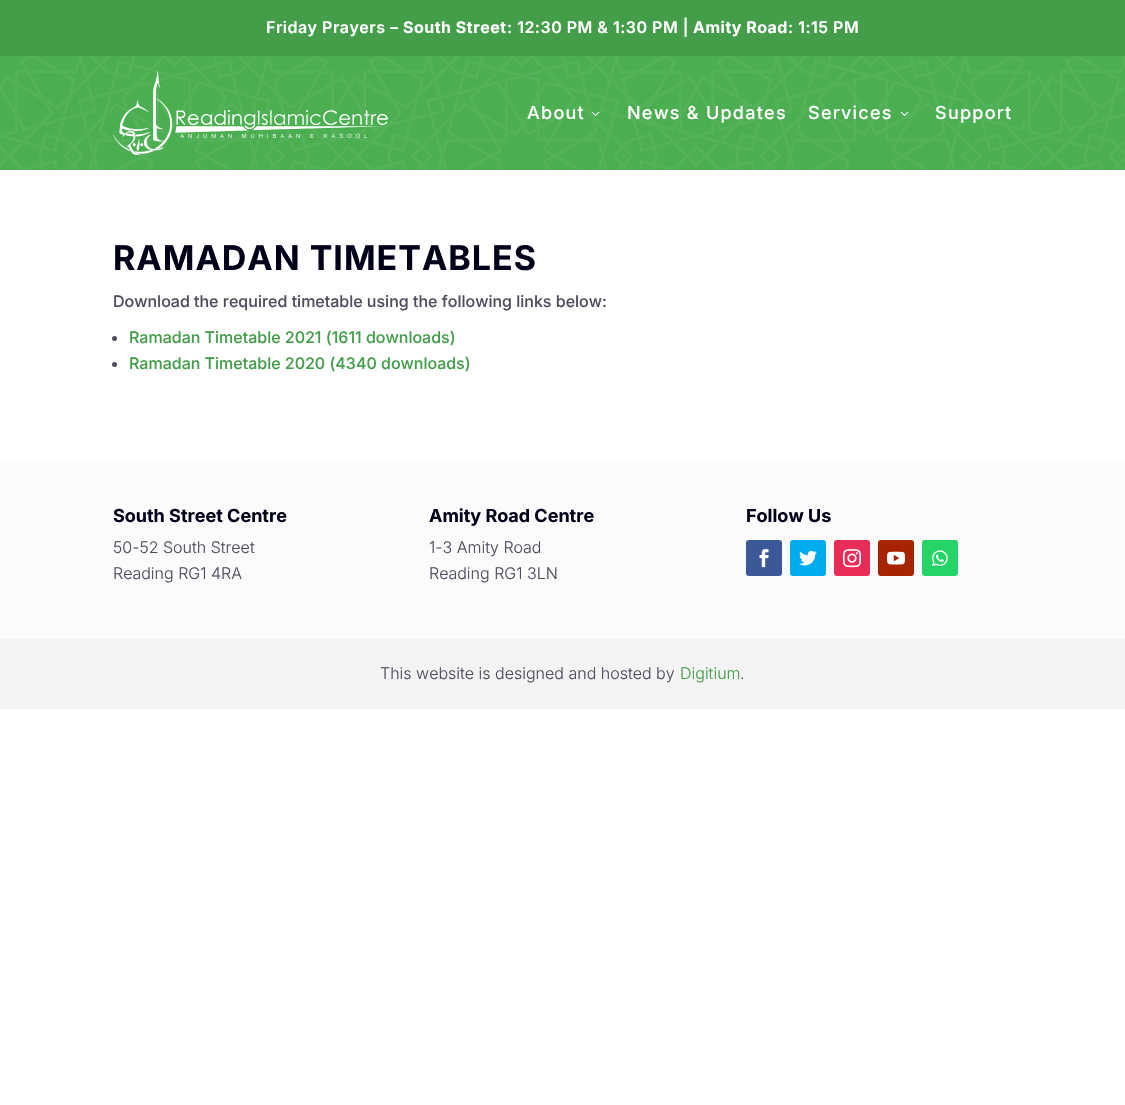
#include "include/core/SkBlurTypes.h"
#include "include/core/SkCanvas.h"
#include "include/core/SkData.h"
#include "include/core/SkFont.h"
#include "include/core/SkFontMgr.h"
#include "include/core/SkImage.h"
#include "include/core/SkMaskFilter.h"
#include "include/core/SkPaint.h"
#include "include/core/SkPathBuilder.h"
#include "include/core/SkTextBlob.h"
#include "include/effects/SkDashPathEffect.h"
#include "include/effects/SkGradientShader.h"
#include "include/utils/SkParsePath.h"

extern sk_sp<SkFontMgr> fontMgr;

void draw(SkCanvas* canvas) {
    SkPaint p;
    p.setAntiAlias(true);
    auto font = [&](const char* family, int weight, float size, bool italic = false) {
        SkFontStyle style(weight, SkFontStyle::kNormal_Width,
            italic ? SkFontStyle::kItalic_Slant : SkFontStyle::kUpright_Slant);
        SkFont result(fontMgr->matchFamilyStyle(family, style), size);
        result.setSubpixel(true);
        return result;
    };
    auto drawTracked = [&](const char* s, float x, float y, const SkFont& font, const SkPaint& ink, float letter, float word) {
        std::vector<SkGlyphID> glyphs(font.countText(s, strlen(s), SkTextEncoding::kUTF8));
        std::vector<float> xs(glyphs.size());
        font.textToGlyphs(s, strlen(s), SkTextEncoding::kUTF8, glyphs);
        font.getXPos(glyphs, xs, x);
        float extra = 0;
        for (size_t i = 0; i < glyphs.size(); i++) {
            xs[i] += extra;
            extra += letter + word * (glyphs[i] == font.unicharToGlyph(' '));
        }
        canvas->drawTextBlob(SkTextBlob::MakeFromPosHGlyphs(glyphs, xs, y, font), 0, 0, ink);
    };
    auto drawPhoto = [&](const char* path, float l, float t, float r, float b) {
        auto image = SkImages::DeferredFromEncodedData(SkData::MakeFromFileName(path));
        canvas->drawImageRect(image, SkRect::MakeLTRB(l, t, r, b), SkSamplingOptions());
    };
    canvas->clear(0xFFFFFFFF);
    p.setColor(0xFF439D49);
    canvas->drawRect(SkRect::MakeLTRB(0, 0, 1125, 56), p);
    auto font1 = font("Inter", 600, 16);
    p.setColor(0xFFFFFFFF);
    drawTracked("Friday Prayers –", 266, 33, font1, p, 0.5f, 0);
    auto font2 = font("Inter", 700, 16);
    drawTracked("South Street", 403, 33, font2, p, 0.5f, 0);
    drawTracked(": 12:30 PM & 1:30 PM |", 507, 33, font1, p, 0.5f, 0);
    drawTracked("Amity Road", 693, 33, font2, p, 0.5f, 0);
    drawTracked(": 1:15 PM", 788, 33, font1, p, 0.5f, 0);
    p.setColor(0xFF4BAF51);
    canvas->drawRect(SkRect::MakeLTRB(0, 56, 1125, 170), p);
    drawPhoto("media/1.png", 0, 56, 1125, 170);
    drawPhoto("media/2.png", 113, 71, 388, 155);
    auto font3 = font("Inter", 500, 18);
    p.setColor(0xFFFFFFFF);
    drawTracked("About", 527, 119, font3, p, 1.25f, 0);
    drawPhoto("media/3.png", 591, 111, 600, 116);
    drawTracked("News & Updates", 627, 119, font3, p, 1.25f, 0);
    drawTracked("Services", 808, 119, font3, p, 1.25f, 0);
    drawPhoto("media/4.png", 900, 111, 909, 116);
    drawTracked("Support", 935, 119, font3, p, 1.25f, 0);
    auto font4 = font("Inter", 700, 34);
    p.setColor(0xFF000018);
    drawTracked("RAMADAN TIMETABLES", 113, 270, font4, p, 1, 0);
    auto font5 = font("Inter", 500, 16);
    p.setColor(0xFF4C4D5D);
    canvas->drawString("Download the required timetable using the following links below:", 113, 307, font5, p);
    canvas->drawCircle(114.5f, 338.5f, 2.5f, p);
    p.setColor(0xFF439D49);
    canvas->drawString("Ramadan Timetable 2021 (1611 downloads)", 129, 343, font5, p);
    p.setColor(0xFF4C4D5D);
    canvas->drawCircle(114.5f, 364.5f, 2.5f, p);
    p.setColor(0xFF439D49);
    canvas->drawString("Ramadan Timetable 2020 (4340 downloads)", 129, 369, font5, p);
    p.setColor(0xFFFBFBFB);
    canvas->drawRect(SkRect::MakeLTRB(0, 460, 1125, 639), p);
    auto font6 = font("Inter", 700, 18);
    p.setColor(0xFF000018);
    canvas->drawString("South Street Centre", 113, 522, font6, p);
    auto font7 = font("Inter", 300, 16);
    p.setColor(0xFF4C4D5D);
    canvas->drawString("50-52 South Street", 113, 553, font7, p);
    canvas->drawString("Reading RG1 4RA", 113, 579, font7, p);
    p.setColor(0xFF000018);
    canvas->drawString("Amity Road Centre", 429, 522, font6, p);
    p.setColor(0xFF4C4D5D);
    canvas->drawString("1-3 Amity Road", 429, 553, font7, p);
    canvas->drawString("Reading RG1 3LN", 429, 579, font7, p);
    p.setColor(0xFF000018);
    canvas->drawString("Follow Us", 746, 522, font6, p);
    p.setColor(0xFF3B5998);
    canvas->drawRoundRect(SkRect::MakeLTRB(746, 540, 782, 576), 3, 3, p);
    drawPhoto("media/5.png", 759, 549, 769, 568);
    p.setColor(0xFF00ACED);
    canvas->drawRoundRect(SkRect::MakeLTRB(790, 540, 826, 576), 3, 3, p);
    drawPhoto("media/6.png", 799, 550, 817, 566);
    p.setColor(0xFFEA2C59);
    canvas->drawRoundRect(SkRect::MakeLTRB(834, 540, 870, 576), 3, 3, p);
    drawPhoto("media/7.png", 843, 549, 861, 568);
    p.setColor(0xFFA82400);
    canvas->drawRoundRect(SkRect::MakeLTRB(878, 540, 914, 576), 3, 3, p);
    drawPhoto("media/8.png", 887, 551, 905, 565);
    p.setColor(0xFF25D366);
    canvas->drawRoundRect(SkRect::MakeLTRB(922, 540, 958, 576), 3, 3, p);
    drawPhoto("media/9.png", 932, 550, 948, 567);
    p.setColor(0xFFF3F3F3);
    canvas->drawRect(SkRect::MakeLTRB(0, 639, 1125, 709), p);
    p.setColor(0xFF4C4D5D);
    canvas->drawString("This website is designed and hosted by", 380, 679, font7, p);
    p.setColor(0xFF439D49);
    canvas->drawString("Digitium", 680, 679, font7, p);
    p.setColor(0xFF4C4D5D);
    canvas->drawString(".", 740, 679, font7, p);
}
